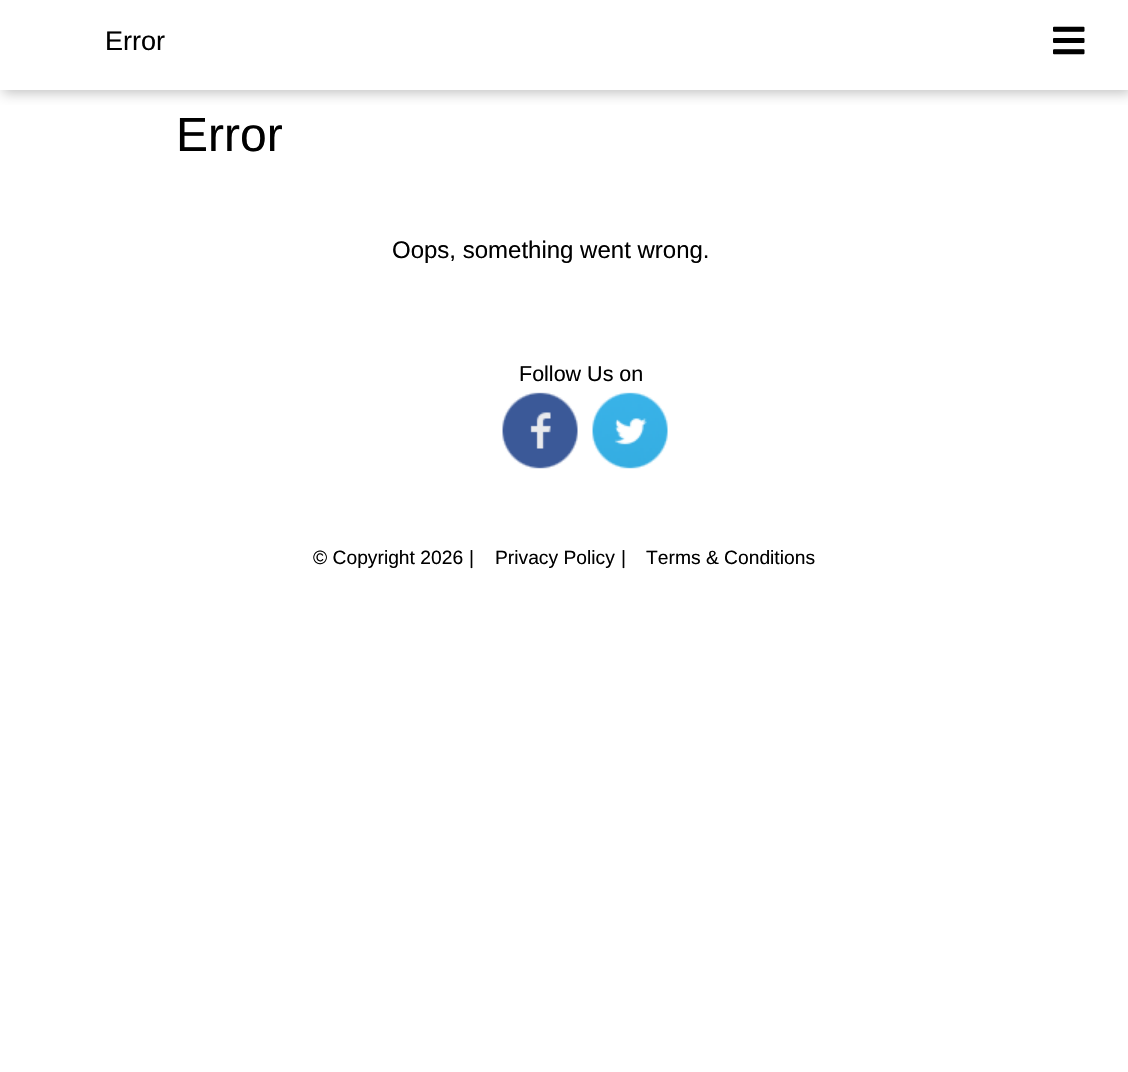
#include "include/core/SkBlurTypes.h"
#include "include/core/SkCanvas.h"
#include "include/core/SkData.h"
#include "include/core/SkFont.h"
#include "include/core/SkFontMgr.h"
#include "include/core/SkImage.h"
#include "include/core/SkMaskFilter.h"
#include "include/core/SkPaint.h"
#include "include/core/SkPathBuilder.h"
#include "include/core/SkTextBlob.h"
#include "include/effects/SkDashPathEffect.h"
#include "include/effects/SkGradientShader.h"
#include "include/utils/SkParsePath.h"

extern sk_sp<SkFontMgr> fontMgr;

void draw(SkCanvas* canvas) {
    SkPaint p;
    p.setAntiAlias(true);
    auto font = [&](const char* family, int weight, float size, bool italic = false) {
        SkFontStyle style(weight, SkFontStyle::kNormal_Width,
            italic ? SkFontStyle::kItalic_Slant : SkFontStyle::kUpright_Slant);
        SkFont result(fontMgr->matchFamilyStyle(family, style), size);
        result.setSubpixel(true);
        return result;
    };
    auto drawPhoto = [&](const char* path, float l, float t, float r, float b) {
        auto image = SkImages::DeferredFromEncodedData(SkData::MakeFromFileName(path));
        canvas->drawImageRect(image, SkRect::MakeLTRB(l, t, r, b), SkSamplingOptions());
    };
    canvas->clear(0xFFFFFFFF);
    canvas->save();
    canvas->clipRect(SkRect::MakeLTRB(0, 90, 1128, 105));
    p.setColor(0xFFC2C2C2);
    p.setMaskFilter(SkMaskFilter::MakeBlur(kNormal_SkBlurStyle, 6));
    canvas->drawRect(SkRect::MakeLTRB(3, 3, 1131, 93), p);
    p.setMaskFilter(nullptr);
    canvas->restore();
    auto font1 = font("Liberation Sans", 400, 27);
    p.setColor(0xFF000000);
    canvas->drawString("Error", 105, 50, font1, p);
    drawPhoto("media/1.png", 1053, 26, 1085, 55);
    auto font2 = font("Liberation Sans", 400, 48);
    canvas->drawString("Error", 176, 151, font2, p);
    auto font3 = font("Liberation Sans", 400, 24);
    canvas->drawString("Oops, something went wrong.", 392, 258, font3, p);
    auto font4 = font("Liberation Sans", 400, 21.5f);
    canvas->drawString("Follow Us on", 519, 381, font4, p);
    drawPhoto("media/2.png", 502, 392, 578, 469);
    drawPhoto("media/3.png", 592, 392, 668, 469);
    auto font5 = font("Liberation Sans", 400, 19.25f);
    {
        const struct { const char* s; float x, y; } items[] = {
            {"© Copyright 2026", 313, 564},
            {"|", 469, 564},
            {"Privacy Policy", 495, 564},
            {"|", 621, 564},
            {"Terms & Conditions", 646, 564},
        };
        for (auto [s, x, y] : items) {
            canvas->drawString(s, x, y, font5, p);
        }
    }
}
